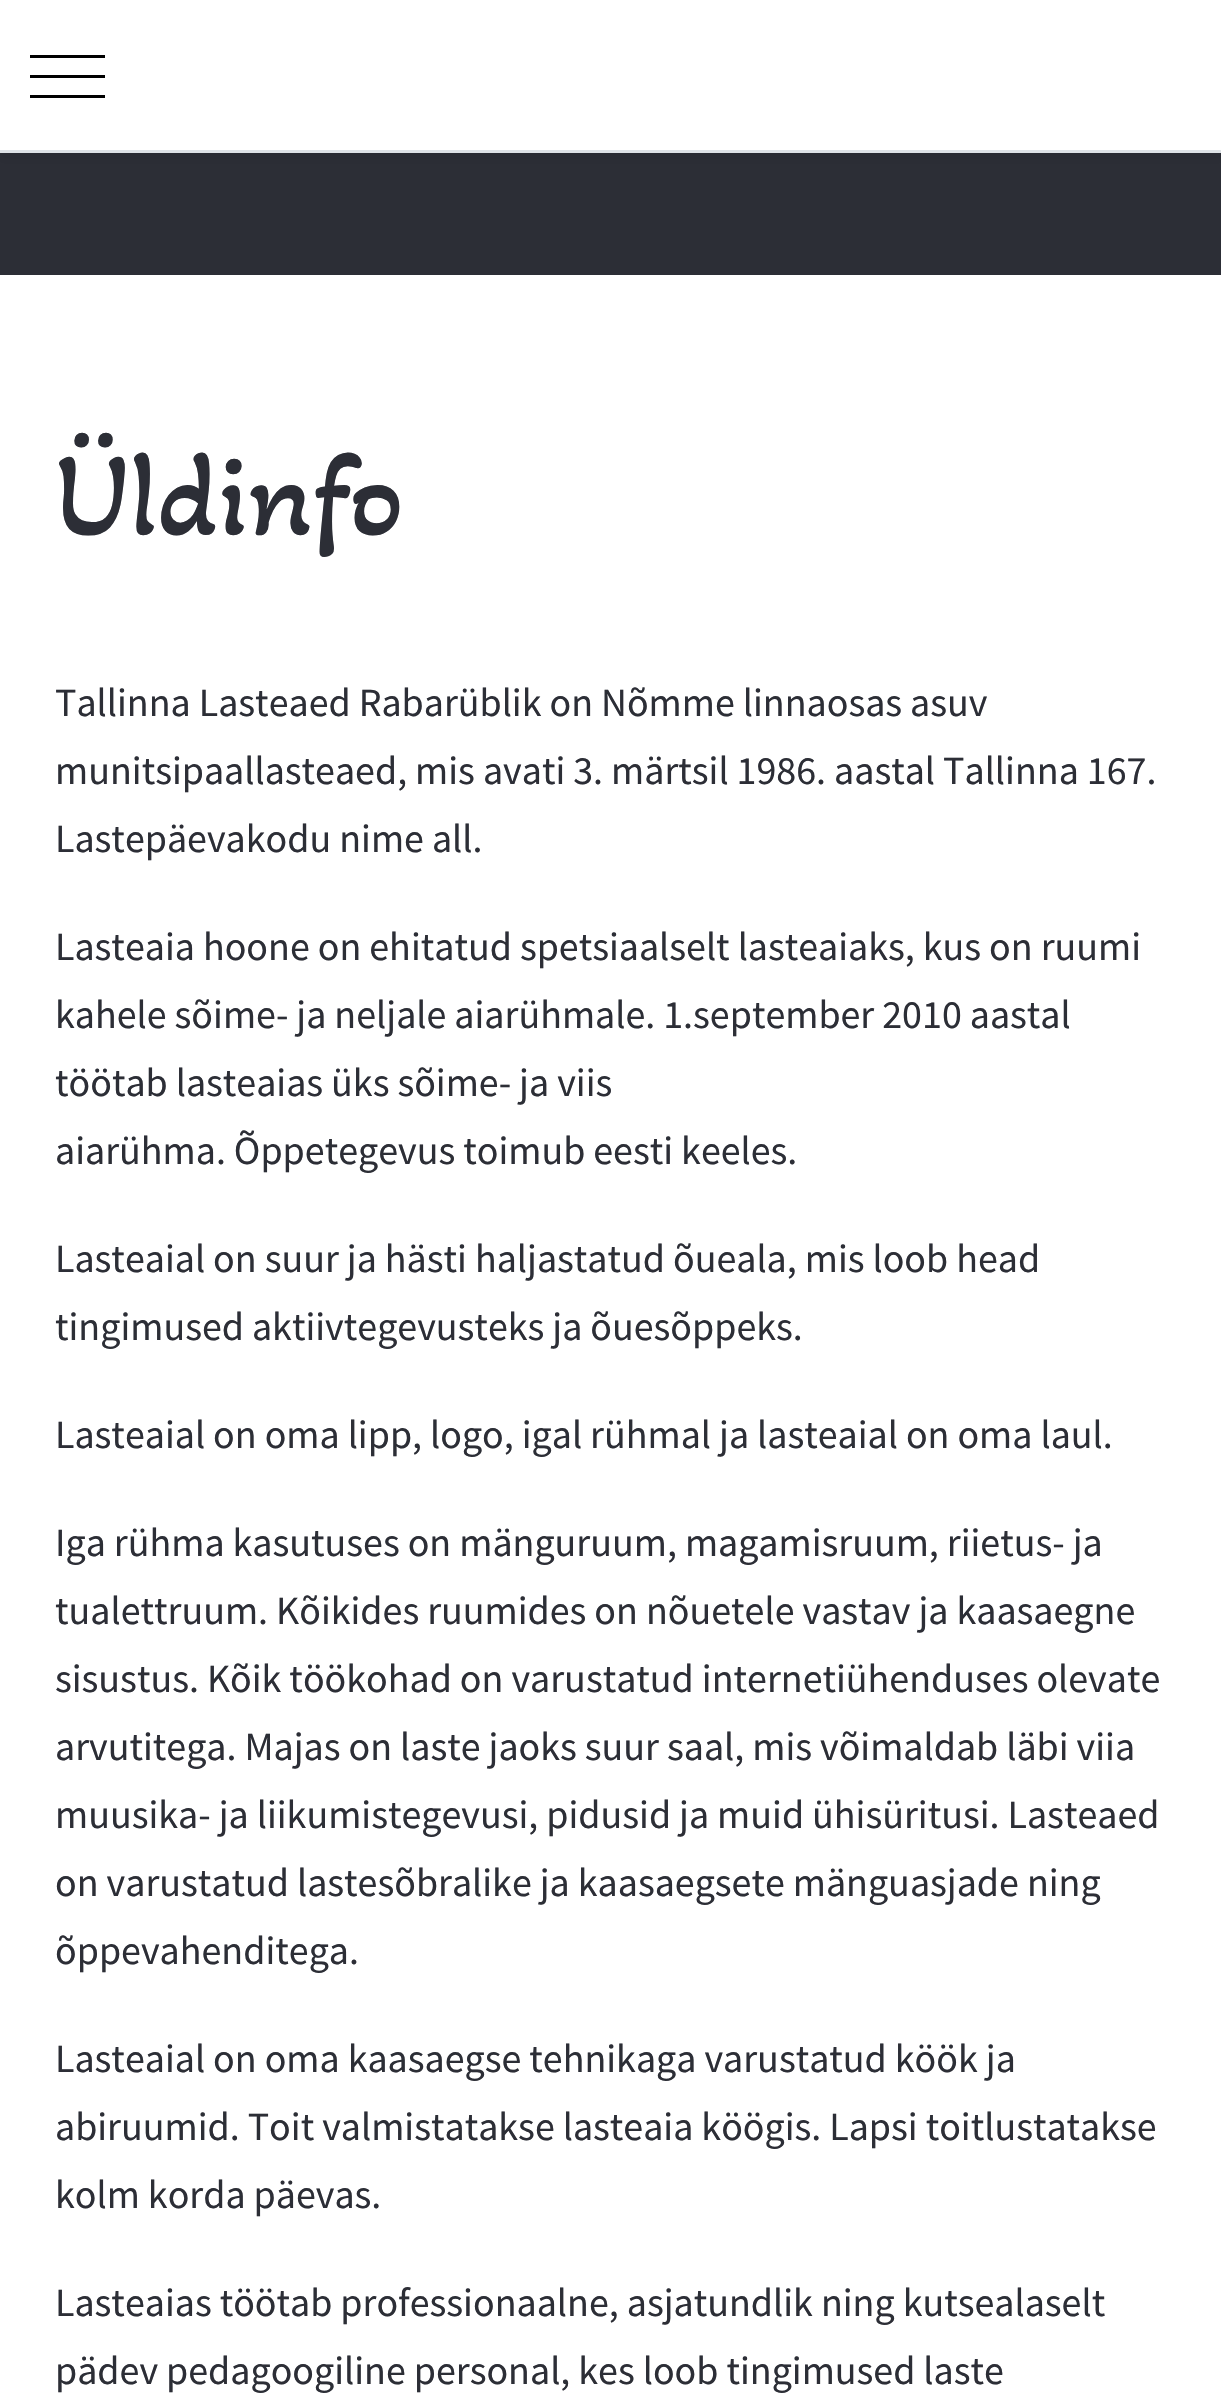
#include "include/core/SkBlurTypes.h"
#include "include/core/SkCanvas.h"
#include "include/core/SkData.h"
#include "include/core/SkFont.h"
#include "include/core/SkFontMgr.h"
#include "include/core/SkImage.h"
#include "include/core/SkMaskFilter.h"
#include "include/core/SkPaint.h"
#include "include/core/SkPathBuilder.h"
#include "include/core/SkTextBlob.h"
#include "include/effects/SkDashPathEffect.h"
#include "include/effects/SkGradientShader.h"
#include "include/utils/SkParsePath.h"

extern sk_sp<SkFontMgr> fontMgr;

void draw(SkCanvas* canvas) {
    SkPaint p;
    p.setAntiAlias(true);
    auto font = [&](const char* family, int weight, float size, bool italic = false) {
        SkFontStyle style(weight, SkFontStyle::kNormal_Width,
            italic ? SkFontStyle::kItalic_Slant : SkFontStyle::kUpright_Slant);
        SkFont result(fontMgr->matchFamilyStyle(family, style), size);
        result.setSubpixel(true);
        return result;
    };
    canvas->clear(0xFFFFFFFF);
    p.setColor(0xFF2C2E36);
    canvas->drawRect(SkRect::MakeLTRB(0, 153, 1221, 275), p);
    p.setColor(0x12000000);
    p.setMaskFilter(SkMaskFilter::MakeBlur(kNormal_SkBlurStyle, 5));
    canvas->drawRect(SkRect::MakeLTRB(0, 5, 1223, 158), p);
    p.setMaskFilter(nullptr);
    {
        const struct { float l, t, r, b; SkColor color; } items[] = {
            {0, 0, 1221, 150, 0xFFFFFFFF},
            {0, 150, 1221, 153, 0xFFDEE2E6},
            {30, 75, 105, 78, 0xFF000000},
            {30, 55, 105, 58, 0xFF000000},
            {30, 95, 105, 98, 0xFF000000},
        };
        for (auto [l, t, r, b, color] : items) {
            p.setColor(color);
            canvas->drawRect(SkRect::MakeLTRB(l, t, r, b), p);
        }
    }
    auto font1 = font("Akaya Telivigala", 400, 120);
    p.setColor(0xFF2C2E36);
    canvas->drawString("Üldinfo", 55, 534, font1, p);
    auto font2 = font("Source Sans Pro", 400, 40);
    {
        const struct { const char* s; float x, y; } items[] = {
            {"Tallinna Lasteaed Rabarüblik on Nõmme linnaosas asuv", 55, 716},
            {"munitsipaallasteaed, mis avati 3. märtsil 1986. aastal Tallinna 167.", 55, 784},
            {"Lastepäevakodu nime all.", 55, 852},
            {"Lasteaia hoone on ehitatud spetsiaalselt lasteaiaks, kus on ruumi", 55, 960},
            {"kahele sõime- ja neljale aiarühmale. 1.september 2010 aastal", 55, 1028},
            {"töötab lasteaias üks sõime- ja viis", 55, 1096},
            {"aiarühma. Õppetegevus toimub eesti keeles.", 55, 1164},
            {"Lasteaial on suur ja hästi haljastatud õueala, mis loob head", 55, 1272},
            {"tingimused aktiivtegevusteks ja õuesõppeks.", 55, 1340},
            {"Lasteaial on oma lipp, logo, igal rühmal ja lasteaial on oma laul.", 55, 1448},
            {"Iga rühma kasutuses on mänguruum, magamisruum, riietus- ja", 55, 1556},
            {"tualettruum. Kõikides ruumides on nõuetele vastav ja kaasaegne", 55, 1624},
            {"sisustus. Kõik töökohad on varustatud internetiühenduses olevate", 55, 1692},
            {"arvutitega. Majas on laste jaoks suur saal, mis võimaldab läbi viia", 55, 1760},
            {"muusika- ja liikumistegevusi, pidusid ja muid ühisüritusi. Lasteaed", 55, 1828},
            {"on varustatud lastesõbralike ja kaasaegsete mänguasjade ning", 55, 1896},
            {"õppevahenditega.", 55, 1964},
            {"Lasteaial on oma kaasaegse tehnikaga varustatud köök ja", 55, 2072},
            {"abiruumid. Toit valmistatakse lasteaia köögis. Lapsi toitlustatakse", 55, 2140},
            {"kolm korda päevas.", 55, 2208},
            {"Lasteaias töötab professionaalne, asjatundlik ning kutsealaselt", 55, 2316},
            {"pädev pedagoogiline personal, kes loob tingimused laste", 55, 2384},
        };
        for (auto [s, x, y] : items) {
            canvas->drawString(s, x, y, font2, p);
        }
    }
}
